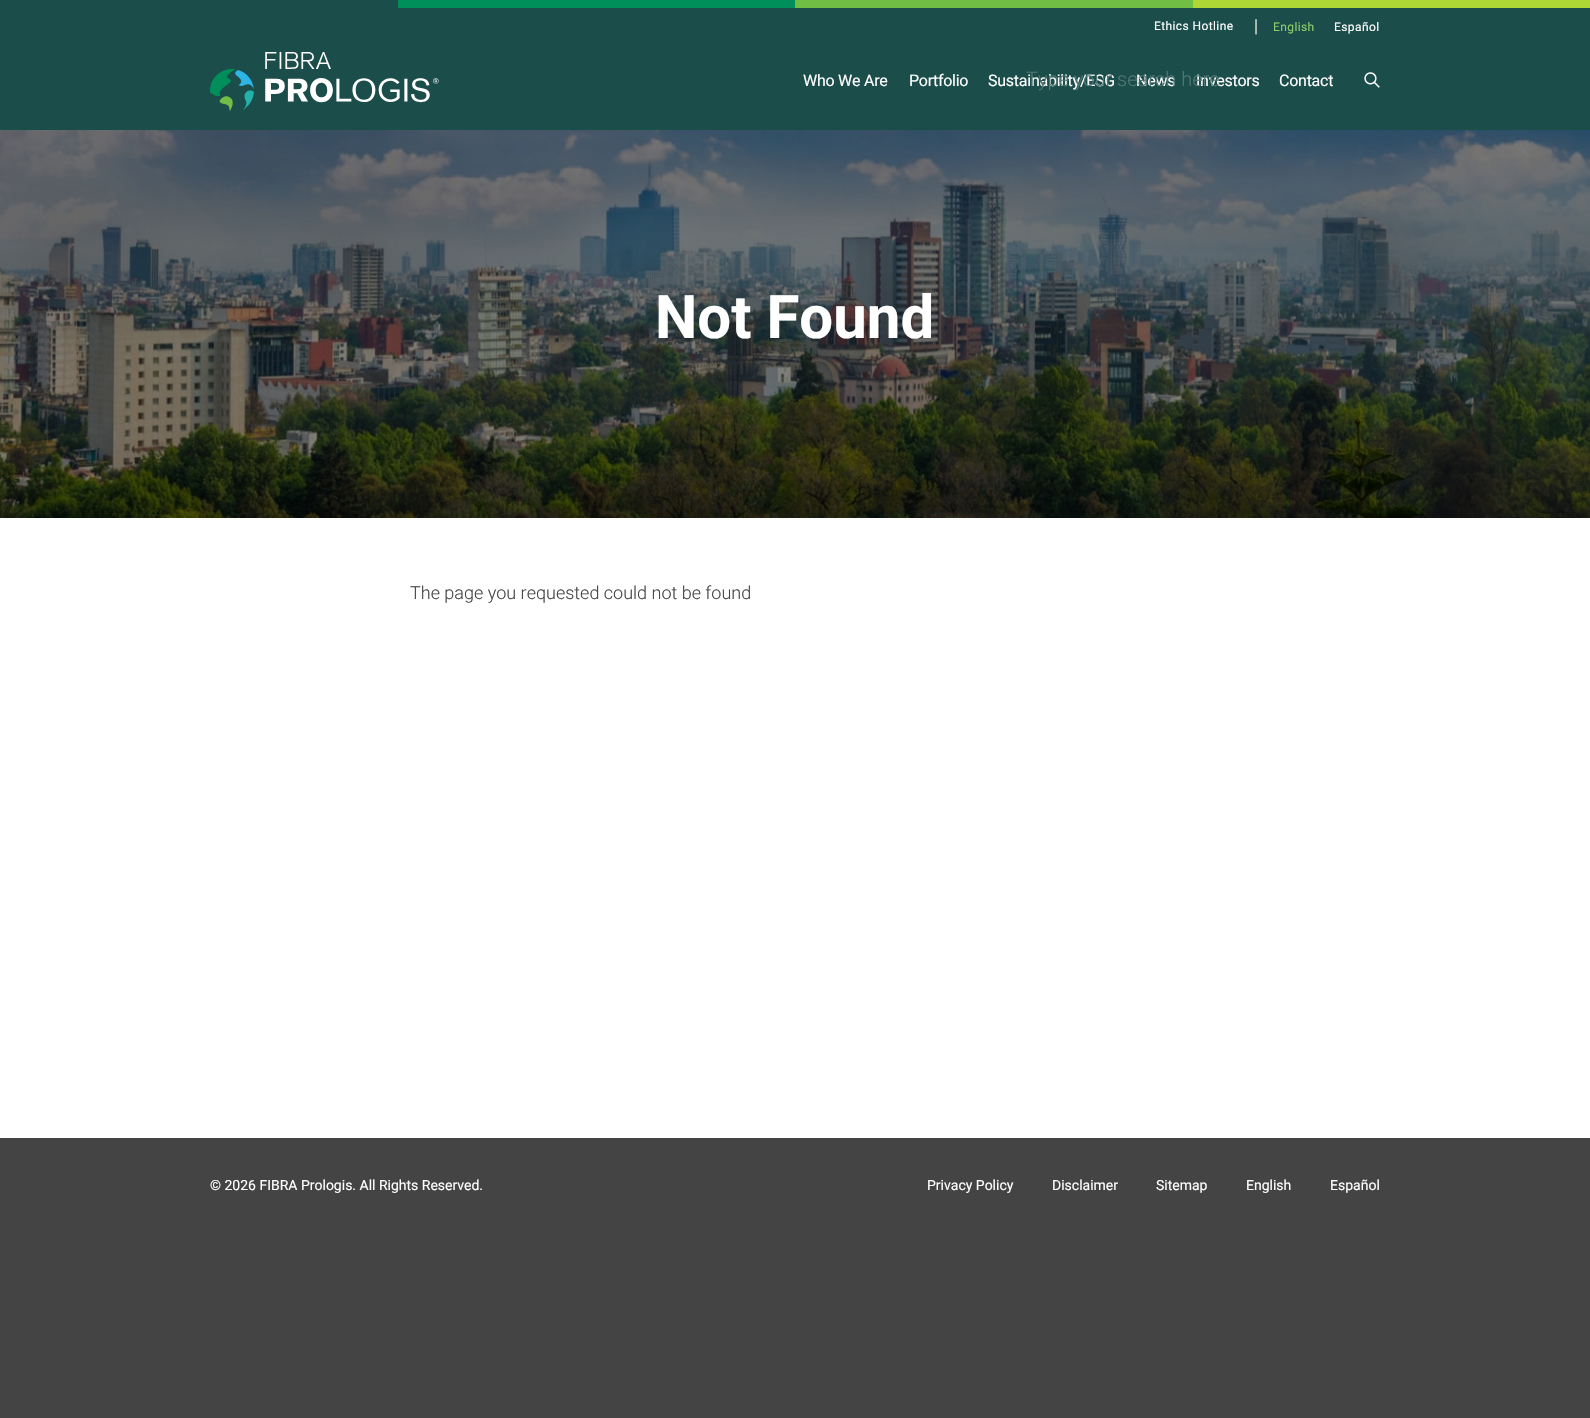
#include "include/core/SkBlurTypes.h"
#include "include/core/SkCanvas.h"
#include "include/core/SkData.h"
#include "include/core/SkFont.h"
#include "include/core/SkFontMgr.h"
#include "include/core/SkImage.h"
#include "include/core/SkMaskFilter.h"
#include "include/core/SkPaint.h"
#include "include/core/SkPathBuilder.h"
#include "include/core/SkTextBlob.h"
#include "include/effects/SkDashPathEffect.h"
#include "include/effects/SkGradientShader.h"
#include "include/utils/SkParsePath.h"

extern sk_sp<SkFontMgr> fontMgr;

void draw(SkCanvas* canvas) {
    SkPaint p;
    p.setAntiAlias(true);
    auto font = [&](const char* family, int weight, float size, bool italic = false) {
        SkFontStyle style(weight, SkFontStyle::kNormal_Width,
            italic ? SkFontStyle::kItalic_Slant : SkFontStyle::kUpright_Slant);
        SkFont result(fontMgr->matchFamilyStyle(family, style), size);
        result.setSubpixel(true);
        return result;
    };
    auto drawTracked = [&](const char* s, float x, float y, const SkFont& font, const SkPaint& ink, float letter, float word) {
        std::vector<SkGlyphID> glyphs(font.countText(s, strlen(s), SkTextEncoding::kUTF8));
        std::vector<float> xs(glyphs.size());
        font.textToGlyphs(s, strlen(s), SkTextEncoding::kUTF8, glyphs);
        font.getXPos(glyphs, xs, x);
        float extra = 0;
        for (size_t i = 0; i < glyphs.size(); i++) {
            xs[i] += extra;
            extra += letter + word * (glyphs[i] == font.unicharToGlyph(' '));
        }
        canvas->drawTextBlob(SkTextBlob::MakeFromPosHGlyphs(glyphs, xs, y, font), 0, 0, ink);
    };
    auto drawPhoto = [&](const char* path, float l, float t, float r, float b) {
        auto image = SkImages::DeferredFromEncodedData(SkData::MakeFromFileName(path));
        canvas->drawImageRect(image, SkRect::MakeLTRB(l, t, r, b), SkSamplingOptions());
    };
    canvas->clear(0xFF444444);
    {
        const struct { float l, t, r, b; SkColor color; } items[] = {
            {0, 518, 1590, 1138, 0xFFFFFFFF},
            {0, 0, 1590, 130, 0xFF1B4D4A},
            {398, 0, 795, 8, 0xFF008E5B},
            {795, 0, 1193, 8, 0xFF71BE45},
            {1193, 0, 1590, 8, 0xFFADD735},
        };
        for (auto [l, t, r, b, color] : items) {
            p.setColor(color);
            canvas->drawRect(SkRect::MakeLTRB(l, t, r, b), p);
        }
    }
    auto font1 = font("Roboto", 400, 12);
    p.setColor(0xFFFFFFFF);
    drawTracked("Ethics Hotline", 1154, 30, font1, p, 0.4f, 0);
    auto font2 = font("Roboto", 300, 18);
    canvas->drawString("|", 1254, 32, font2, p);
    p.setColor(0xFF8ECB6B);
    drawTracked("English", 1273, 31, font1, p, 0.4f, 0);
    p.setColor(0xFFFFFFFF);
    drawTracked("Español", 1334, 31, font1, p, 0.4f, 0);
    drawPhoto("media/1.png", 210, 52, 439, 111);
    auto font3 = font("Roboto", 400, 16);
    {
        const struct { const char* s; float x, y; } items[] = {
            {"Sustainability/ESG", 988, 86},
            {"News", 1136, 86},
            {"Investors", 1196, 86},
        };
        for (auto [s, x, y] : items) {
            drawTracked(s, x, y, font3, p, -0.25f, 0);
        }
    }
    auto font4 = font("Roboto", 300, 20);
    p.setColor(0xFF4F7673);
    canvas->drawString("Type your search here", 1026, 86, font4, p);
    drawPhoto("media/2.png", 1364, 72, 1380, 88);
    p.setColor(0xFFFFFFFF);
    {
        const struct { const char* s; float x, y; } items[] = {
            {"Who We Are", 803, 86},
            {"Portfolio", 909, 86},
            {"Contact", 1279, 86},
        };
        for (auto [s, x, y] : items) {
            drawTracked(s, x, y, font3, p, -0.25f, 0);
        }
    }
    drawPhoto("media/3.png", 0, 130, 1590, 518);
    auto font5 = font("Roboto", 700, 60);
    canvas->drawString("Not Found", 655, 338, font5, p);
    p.setColor(0xFF444444);
    canvas->drawString("The page you requested could not be found", 410, 599, font2, p);
    auto font6 = font("Roboto", 400, 14);
    p.setColor(0xFFFFFFFF);
    {
        const struct { const char* s; float x, y; } items[] = {
            {"© 2026 FIBRA Prologis. All Rights Reserved.", 210, 1190},
            {"Privacy Policy", 927, 1190},
            {"Disclaimer", 1052, 1190},
            {"Sitemap", 1156, 1190},
            {"English", 1246, 1190},
            {"Español", 1330, 1190},
        };
        for (auto [s, x, y] : items) {
            canvas->drawString(s, x, y, font6, p);
        }
    }
}
